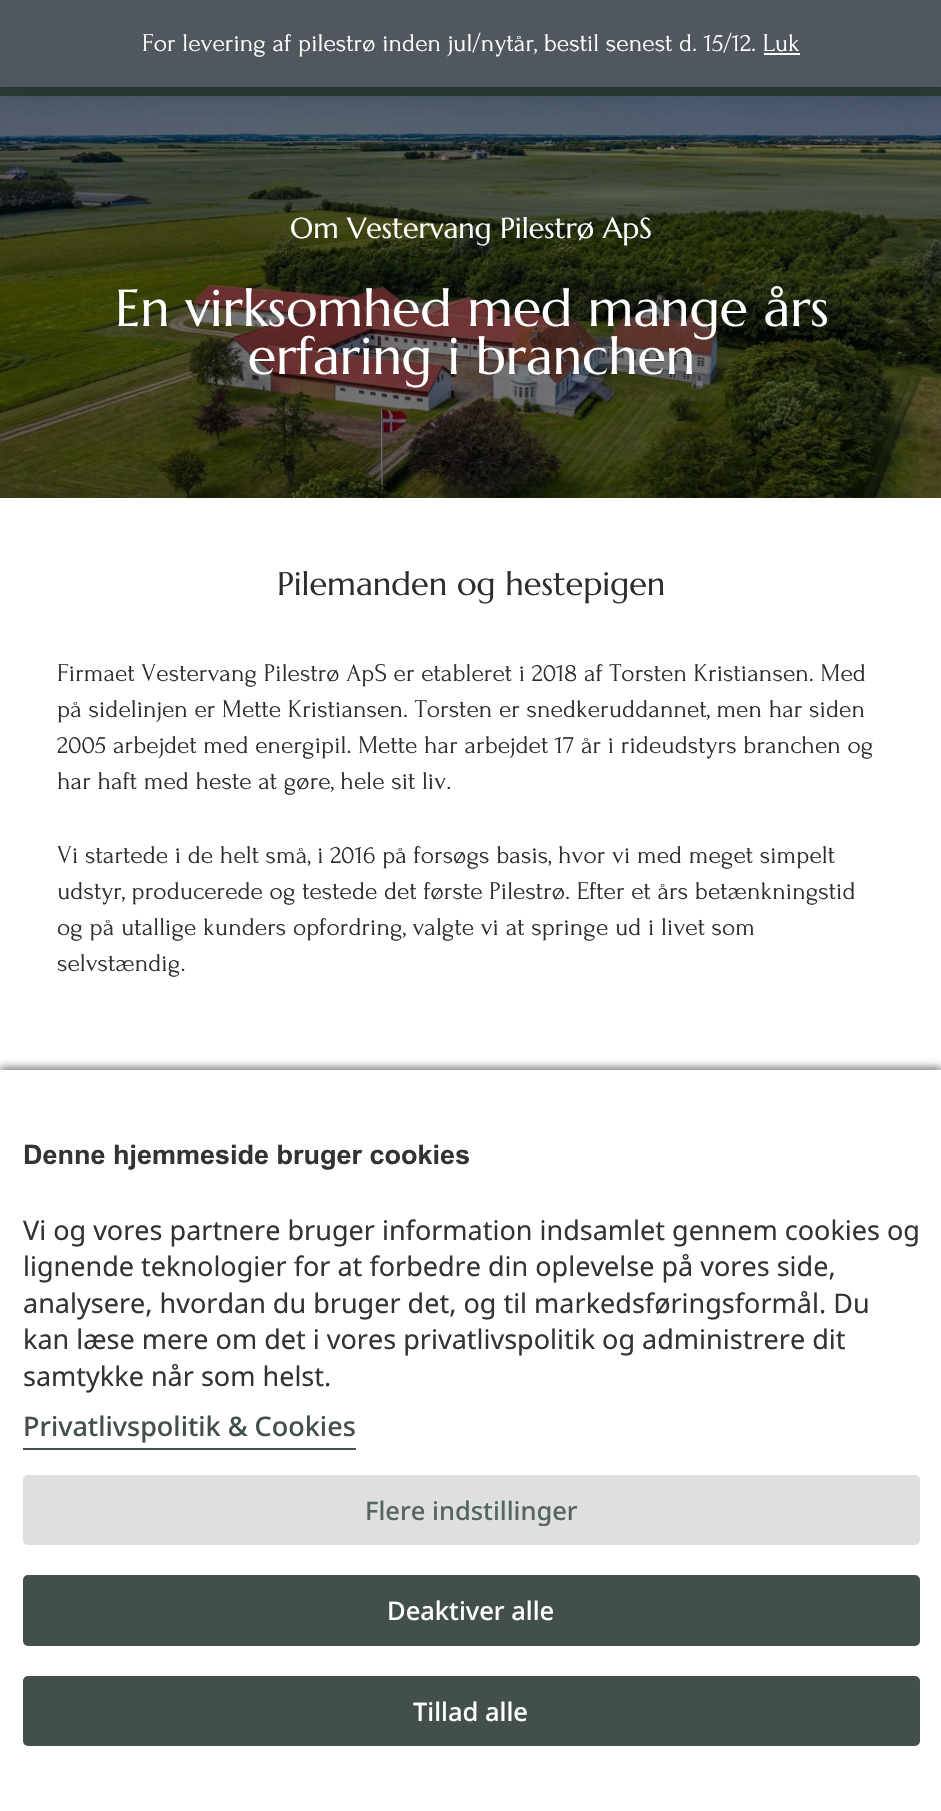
#include "include/core/SkBlurTypes.h"
#include "include/core/SkCanvas.h"
#include "include/core/SkData.h"
#include "include/core/SkFont.h"
#include "include/core/SkFontMgr.h"
#include "include/core/SkImage.h"
#include "include/core/SkMaskFilter.h"
#include "include/core/SkPaint.h"
#include "include/core/SkPathBuilder.h"
#include "include/core/SkTextBlob.h"
#include "include/effects/SkDashPathEffect.h"
#include "include/effects/SkGradientShader.h"
#include "include/utils/SkParsePath.h"

extern sk_sp<SkFontMgr> fontMgr;

void draw(SkCanvas* canvas) {
    SkPaint p;
    p.setAntiAlias(true);
    auto font = [&](const char* family, int weight, float size, bool italic = false) {
        SkFontStyle style(weight, SkFontStyle::kNormal_Width,
            italic ? SkFontStyle::kItalic_Slant : SkFontStyle::kUpright_Slant);
        SkFont result(fontMgr->matchFamilyStyle(family, style), size);
        result.setSubpixel(true);
        return result;
    };
    auto drawPhoto = [&](const char* path, float l, float t, float r, float b) {
        auto image = SkImages::DeferredFromEncodedData(SkData::MakeFromFileName(path));
        canvas->drawImageRect(image, SkRect::MakeLTRB(l, t, r, b), SkSamplingOptions());
    };
    canvas->clear(0xFFFFFFFF);
    p.setColor(0xFF2E3C36);
    canvas->drawRect(SkRect::MakeLTRB(0, 87, 941, 96), p);
    drawPhoto("media/1.png", 0, 96, 941, 498);
    p.setColor(0x33000000);
    p.setMaskFilter(SkMaskFilter::MakeBlur(kNormal_SkBlurStyle, 13));
    canvas->drawRect(SkRect::MakeLTRB(0, 2, 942, 89), p);
    p.setMaskFilter(nullptr);
    p.setColor(0xFF50575E);
    canvas->drawRect(SkRect::MakeLTRB(0, 0, 941, 87), p);
    auto font1 = font("Forum", 400, 25.5f);
    p.setColor(0xFFFFFFFF);
    canvas->drawString("For levering af pilestrø inden jul/nytår, bestil senest d. 15/12. Luk", 142, 51, font1, p);
    p.setColor(0xFFFCFBFE);
    canvas->drawRect(SkRect::MakeLTRB(764, 53, 800, 55), p);
    auto font2 = font("Marcellus", 400, 28.75f);
    p.setColor(0xFFFFFFFF);
    canvas->drawString("Om Vestervang Pilestrø ApS", 290, 238, font2, p);
    auto font3 = font("Marcellus", 400, 51.75f);
    canvas->drawString("En virksomhed med mange års", 115, 326, font3, p);
    canvas->drawString("erfaring i branchen", 248, 374, font3, p);
    auto font4 = font("Marcellus", 400, 32.6f);
    p.setColor(0xFF2D2D2D);
    canvas->drawString("Pilemanden og hestepigen", 277, 595, font4, p);
    {
        const struct { const char* s; float x, y; } items[] = {
            {"Firmaet Vestervang Pilestrø ApS er etableret i 2018 af Torsten Kristiansen. Med", 57, 681},
            {"på sidelinjen er Mette Kristiansen. Torsten er snedkeruddannet, men har siden", 57, 717},
            {"2005 arbejdet med energipil. Mette har arbejdet 17 år i rideudstyrs branchen og", 57, 753},
            {"har haft med heste at gøre, hele sit liv.", 57, 789},
            {"Vi startede i de helt små, i 2016 på forsøgs basis, hvor vi med meget simpelt", 57, 863},
            {"udstyr, producerede og testede det første Pilestrø. Efter et års betænkningstid", 57, 899},
            {"og på utallige kunders opfordring, valgte vi at springe ud i livet som", 57, 935},
            {"selvstændig.", 57, 971},
        };
        for (auto [s, x, y] : items) {
            canvas->drawString(s, x, y, font1, p);
        }
    }
    p.setColor(0x80000000);
    p.setMaskFilter(SkMaskFilter::MakeBlur(kNormal_SkBlurStyle, 4));
    canvas->drawRect(SkRect::MakeLTRB(0, 1067, 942, 1809), p);
    p.setMaskFilter(nullptr);
    p.setColor(0xFFFFFFFF);
    canvas->drawRect(SkRect::MakeLTRB(0, 1070, 941, 1811), p);
    auto font5 = font("Arial", 700, 27);
    p.setColor(0xFF333333);
    canvas->drawString("Denne hjemmeside bruger cookies", 23, 1164, font5, p);
    auto font6 = font("Noto Sans", 400, 27);
    {
        const struct { const char* s; float x, y; } items[] = {
            {"Vi og vores partnere bruger information indsamlet gennem cookies og", 23, 1240},
            {"lignende teknologier for at forbedre din oplevelse på vores side,", 23, 1276},
            {"analysere, hvordan du bruger det, og til markedsføringsformål. Du", 23, 1313},
            {"kan læse mere om det i vores privatlivspolitik og administrere dit", 23, 1349},
            {"samtykke når som helst.", 23, 1386},
        };
        for (auto [s, x, y] : items) {
            canvas->drawString(s, x, y, font6, p);
        }
    }
    auto font7 = font("Noto Sans", 500, 27);
    p.setColor(0xFF43504A);
    canvas->drawString("Privatlivspolitik & Cookies", 23, 1436, font7, p);
    canvas->drawRect(SkRect::MakeLTRB(23, 1448, 356, 1450), p);
    p.setColor(0xFFDFDFDF);
    canvas->drawRoundRect(SkRect::MakeLTRB(23, 1475, 920, 1545), 5, 5, p);
    auto font8 = font("Noto Sans", 500, 25.5f);
    p.setColor(0xFF54675E);
    canvas->drawString("Flere indstillinger", 365, 1520, font8, p);
    p.setColor(0xFF43504A);
    canvas->drawRoundRect(SkRect::MakeLTRB(23, 1575, 920, 1646), 5, 5, p);
    p.setColor(0xFFFFFFFF);
    canvas->drawString("Deaktiver alle", 387, 1620, font8, p);
    p.setColor(0xFF43504A);
    canvas->drawRoundRect(SkRect::MakeLTRB(23, 1676, 920, 1746), 5, 5, p);
    p.setColor(0xFFFFFFFF);
    canvas->drawString("Tillad alle", 413, 1721, font8, p);
}
